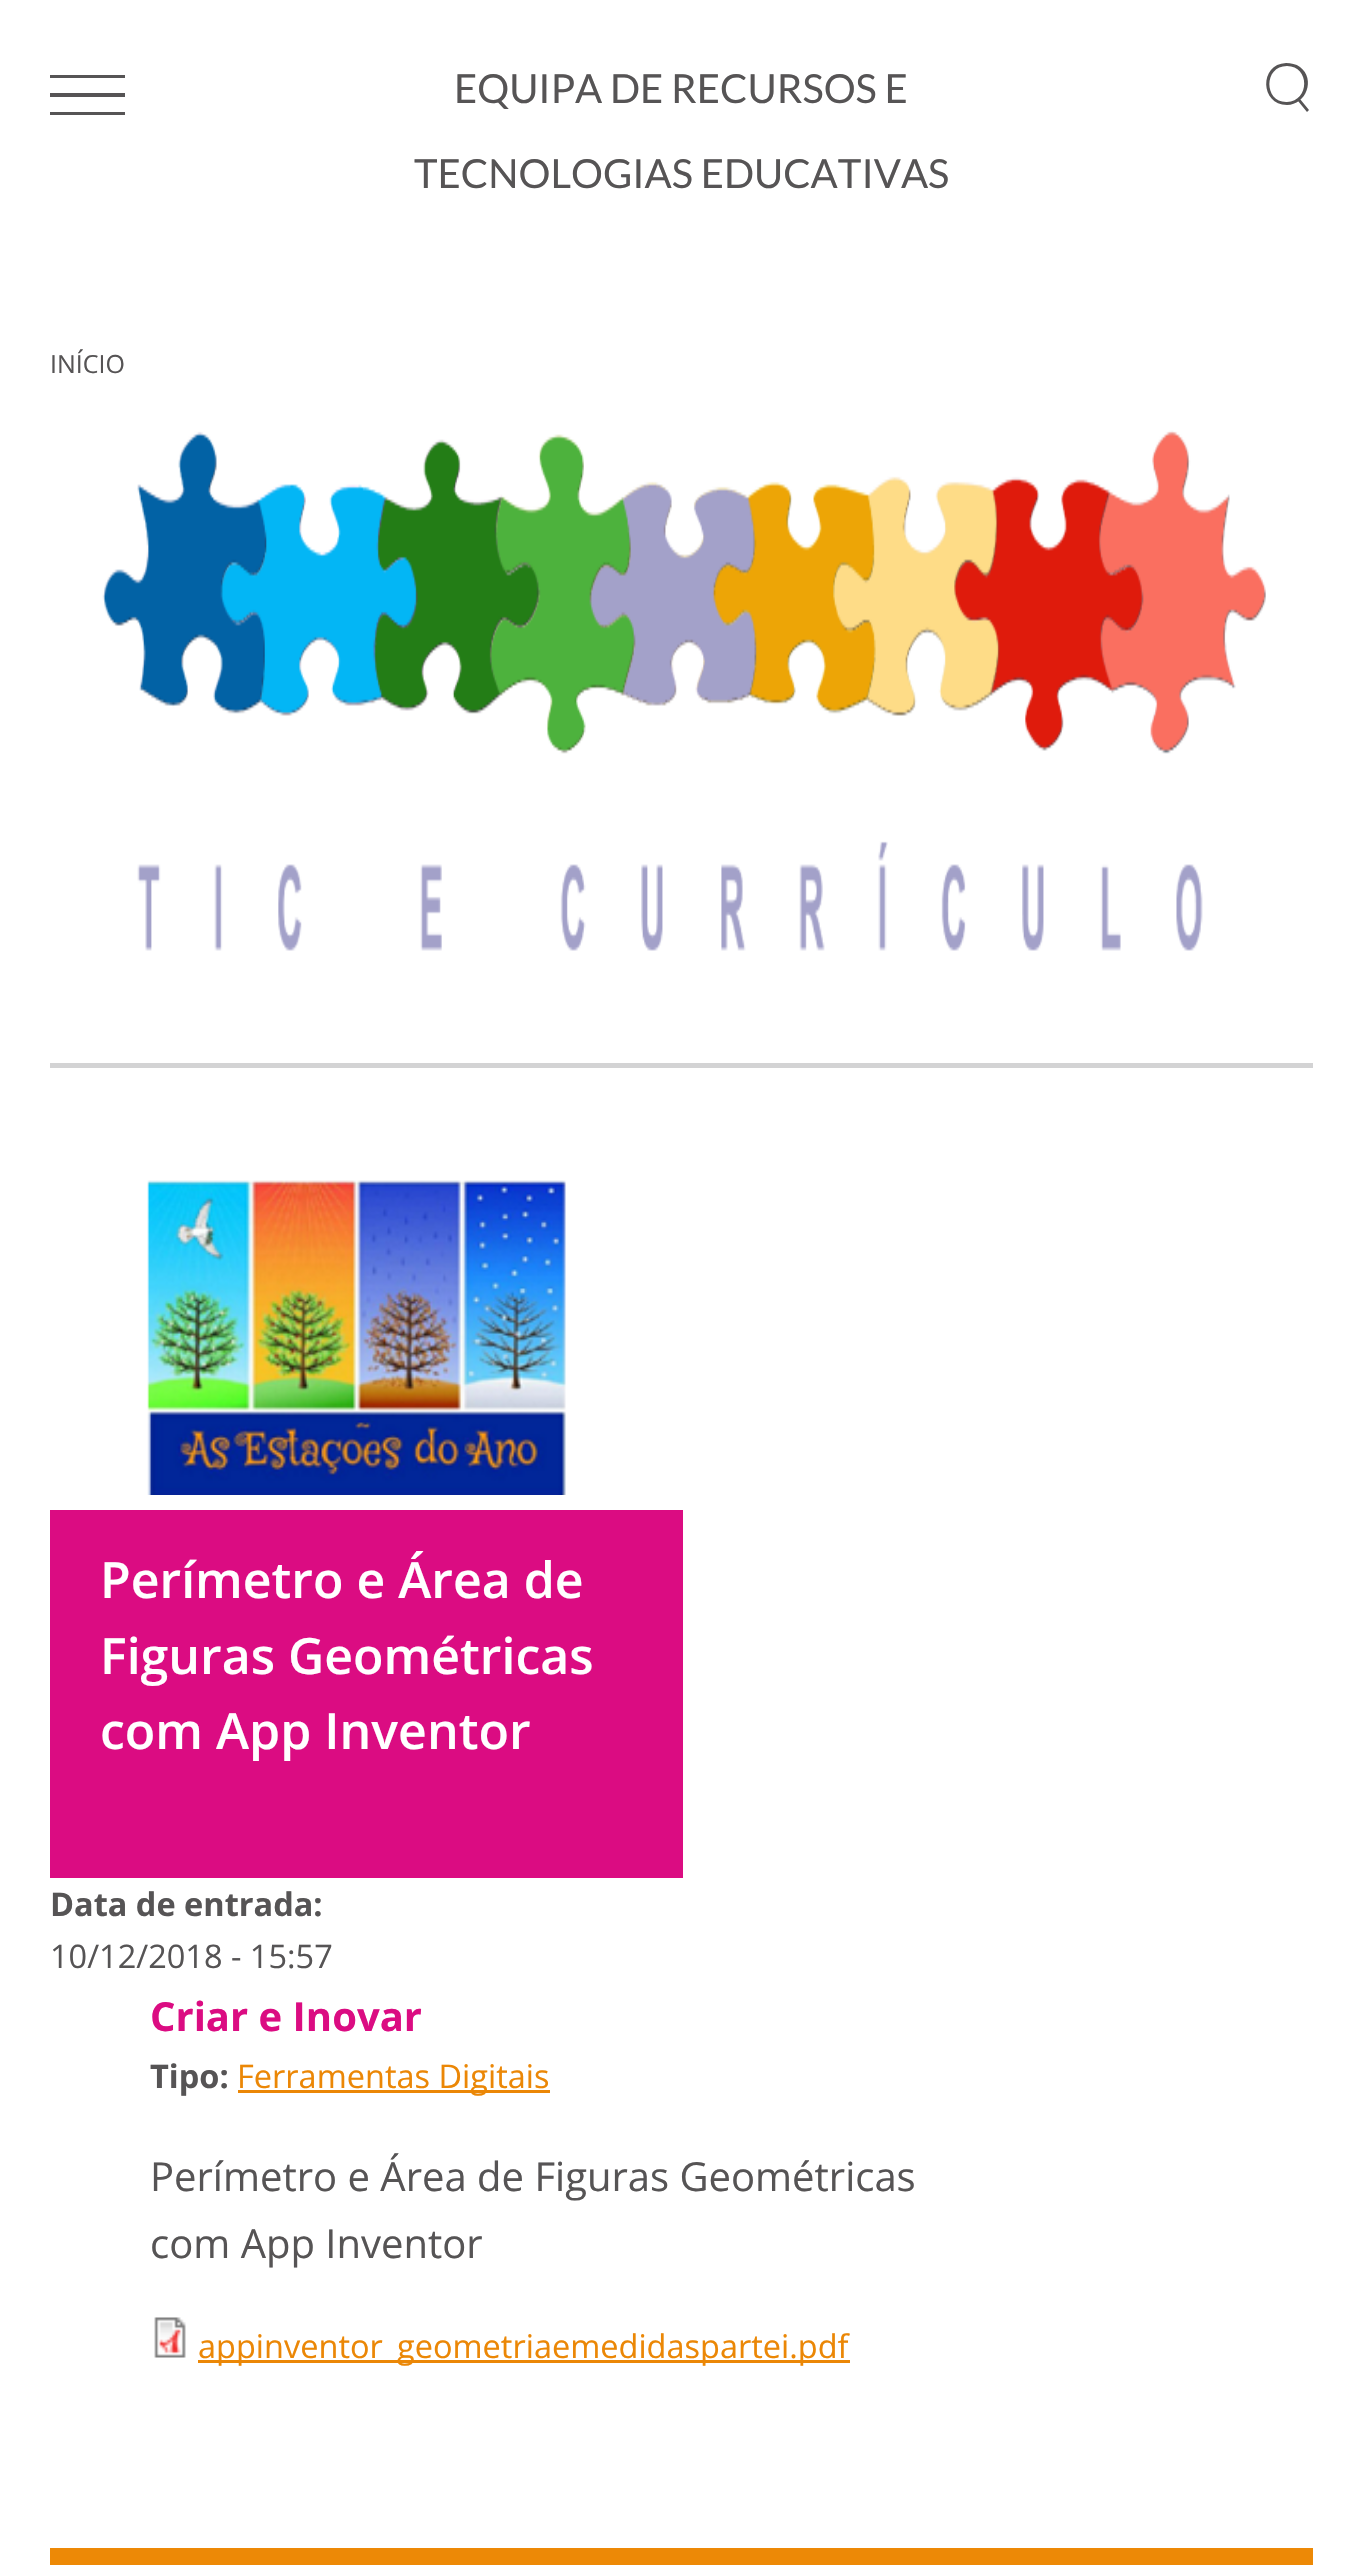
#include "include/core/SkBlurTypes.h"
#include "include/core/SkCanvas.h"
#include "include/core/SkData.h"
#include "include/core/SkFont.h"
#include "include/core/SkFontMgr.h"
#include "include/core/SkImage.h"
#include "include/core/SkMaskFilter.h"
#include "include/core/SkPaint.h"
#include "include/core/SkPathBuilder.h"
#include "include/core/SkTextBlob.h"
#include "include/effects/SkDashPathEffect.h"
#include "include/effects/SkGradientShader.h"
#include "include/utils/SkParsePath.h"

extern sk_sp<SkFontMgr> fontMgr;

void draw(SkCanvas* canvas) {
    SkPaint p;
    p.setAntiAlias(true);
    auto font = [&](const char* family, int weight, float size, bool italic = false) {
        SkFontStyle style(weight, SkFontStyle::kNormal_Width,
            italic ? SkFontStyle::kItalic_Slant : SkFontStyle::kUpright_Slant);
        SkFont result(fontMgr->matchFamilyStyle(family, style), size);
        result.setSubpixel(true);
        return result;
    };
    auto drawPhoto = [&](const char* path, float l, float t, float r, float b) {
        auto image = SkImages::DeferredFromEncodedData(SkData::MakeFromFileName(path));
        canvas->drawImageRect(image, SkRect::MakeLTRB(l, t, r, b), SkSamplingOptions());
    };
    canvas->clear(0xFFFFFFFF);
    auto font1 = font("Lato", 400, 40);
    p.setColor(0xFF565455);
    canvas->drawString("EQUIPA DE RECURSOS E", 454, 103, font1, p);
    canvas->drawString("TECNOLOGIAS EDUCATIVAS", 414, 188, font1, p);
    canvas->drawPath(SkPathBuilder().moveTo(50, 75).lineTo(50, 78).lineTo(125, 78).lineTo(125, 75).close().moveTo(50, 93).lineTo(50, 97).lineTo(125, 97).lineTo(125, 93).close().moveTo(50, 112).lineTo(50, 115).lineTo(125, 115).lineTo(125, 112).close().detach(), p);
    canvas->drawPath(SkPathBuilder().moveTo(1287, 105).cubicTo(1306, 105, 1316, 79, 1300, 67).cubicTo(1296, 64, 1291, 63, 1286, 63).cubicTo(1259, 64, 1260, 105, 1287, 105).close().moveTo(1287, 66).cubicTo(1310, 66, 1310, 101, 1287, 102).cubicTo(1264, 103, 1263, 66, 1287, 66).close().moveTo(1300, 99).lineTo(1298, 101).lineTo(1307, 112).lineTo(1309, 110).close().detach(), p);
    auto font2 = font("Open Sans", 400, 25);
    canvas->drawString("INÍCIO", 50, 373, font2, p);
    p.setColor(0xFFD3D3D4);
    canvas->drawRect(SkRect::MakeLTRB(50, 1063, 1313, 1068), p);
    drawPhoto("media/1.png", 102, 430, 1266, 951);
    drawPhoto("media/2.png", 147, 1180, 566, 1495);
    p.setColor(0xFFDB0C82);
    canvas->drawRect(SkRect::MakeLTRB(50, 1510, 683, 1878), p);
    auto font3 = font("Open Sans", 600, 50);
    p.setColor(0xFFFFFFFF);
    {
        const struct { const char* s; float x, y; } items[] = {
            {"Perímetro e Área de", 100, 1598},
            {"Figuras Geométricas", 100, 1674},
            {"com App Inventor", 100, 1749},
        };
        for (auto [s, x, y] : items) {
            canvas->drawString(s, x, y, font3, p);
        }
    }
    auto font4 = font("Open Sans", 700, 32.5f);
    p.setColor(0xFF565455);
    canvas->drawString("Data de entrada:", 50, 1916, font4, p);
    auto font5 = font("Open Sans", 400, 32.5f);
    canvas->drawString("10/12/2018 - 15:57", 50, 1968, font5, p);
    auto font6 = font("Open Sans", 700, 40);
    p.setColor(0xFFDB0C82);
    canvas->drawString("Criar e Inovar", 150, 2031, font6, p);
    p.setColor(0xFF565455);
    canvas->drawString("Tipo:", 150, 2088, font4, p);
    p.setColor(0xFFEB8706);
    canvas->drawRect(SkRect::MakeLTRB(238, 2090, 550, 2093), p);
    canvas->drawString("Ferramentas Digitais", 237, 2088, font5, p);
    auto font7 = font("Open Sans", 400, 40);
    p.setColor(0xFF565455);
    canvas->drawString("Perímetro e Área de Figuras Geométricas", 150, 2191, font7, p);
    canvas->drawString("com App Inventor", 150, 2258, font7, p);
    drawPhoto("media/3.png", 154, 2317, 186, 2358);
    p.setColor(0xFFEB8706);
    canvas->drawRect(SkRect::MakeLTRB(198, 2360, 850, 2363), p);
    canvas->drawString("appinventor_geometriaemedidaspartei.pdf", 198, 2358, font5, p);
    p.setColor(0xFFED8906);
    canvas->drawRect(SkRect::MakeLTRB(50, 2548, 1313, 2565), p);
}
